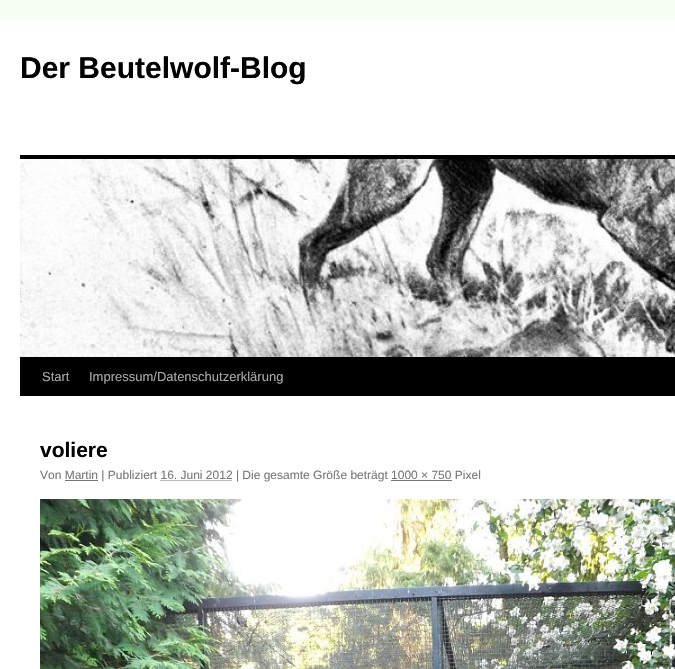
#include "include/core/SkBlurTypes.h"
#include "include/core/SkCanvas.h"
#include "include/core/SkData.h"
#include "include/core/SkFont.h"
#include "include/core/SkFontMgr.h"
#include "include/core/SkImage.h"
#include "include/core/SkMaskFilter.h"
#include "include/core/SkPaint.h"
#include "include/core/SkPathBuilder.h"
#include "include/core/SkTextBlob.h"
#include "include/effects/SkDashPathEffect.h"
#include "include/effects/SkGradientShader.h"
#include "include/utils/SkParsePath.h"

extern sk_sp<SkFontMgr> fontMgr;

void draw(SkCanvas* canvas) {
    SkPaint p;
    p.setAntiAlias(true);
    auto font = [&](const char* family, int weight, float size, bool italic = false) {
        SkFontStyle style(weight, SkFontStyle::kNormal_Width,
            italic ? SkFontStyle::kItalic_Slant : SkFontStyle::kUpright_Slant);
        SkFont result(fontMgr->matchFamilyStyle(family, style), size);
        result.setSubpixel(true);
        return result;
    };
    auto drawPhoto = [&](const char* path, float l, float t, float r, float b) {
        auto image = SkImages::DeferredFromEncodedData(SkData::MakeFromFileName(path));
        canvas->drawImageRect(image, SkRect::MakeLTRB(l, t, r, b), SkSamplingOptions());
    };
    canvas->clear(0xFFF7FFF4);
    p.setColor(0xFFFFFFFF);
    canvas->drawRect(SkRect::MakeLTRB(0, 20, 675, 669), p);
    auto font1 = font("Liberation Sans", 700, 30);
    p.setColor(0xFF000000);
    canvas->drawString("Der Beutelwolf-Blog", 20, 78, font1, p);
    canvas->drawRect(SkRect::MakeLTRB(20, 155, 675, 159), p);
    canvas->drawRect(SkRect::MakeLTRB(20, 357, 675, 396), p);
    drawPhoto("media/1.png", 20, 159, 675, 357);
    auto font2 = font("Liberation Sans", 400, 13);
    p.setColor(0xFFAAAAAA);
    canvas->drawString("Start", 42, 381, font2, p);
    canvas->drawString("Impressum/Datenschutzerklärung", 89, 381, font2, p);
    auto font3 = font("Liberation Sans", 700, 21);
    p.setColor(0xFF000000);
    canvas->drawString("voliere", 40, 457, font3, p);
    auto font4 = font("Liberation Sans", 400, 12);
    p.setColor(0xFF777777);
    canvas->drawString("Von Martin | Publiziert 16. Juni 2012 | Die gesamte Größe beträgt 1000 × 750 Pixel", 40, 479, font4, p);
    canvas->drawRect(SkRect::MakeLTRB(65, 480, 98, 481), p);
    p.setStyle(SkPaint::kStroke_Style);
    p.setStrokeWidth(1);
    p.setPathEffect(SkDashPathEffect::Make({{1, 1}}, 0));
    canvas->drawPath(SkPathBuilder().moveTo(160.5f, 480.5f).lineTo(232.5f, 480.5f).detach(), p);
    p.setPathEffect(nullptr);
    p.setStyle(SkPaint::kFill_Style);
    canvas->drawRect(SkRect::MakeLTRB(391, 480, 452, 481), p);
    drawPhoto("media/2.png", 40, 499, 675, 669);
}
